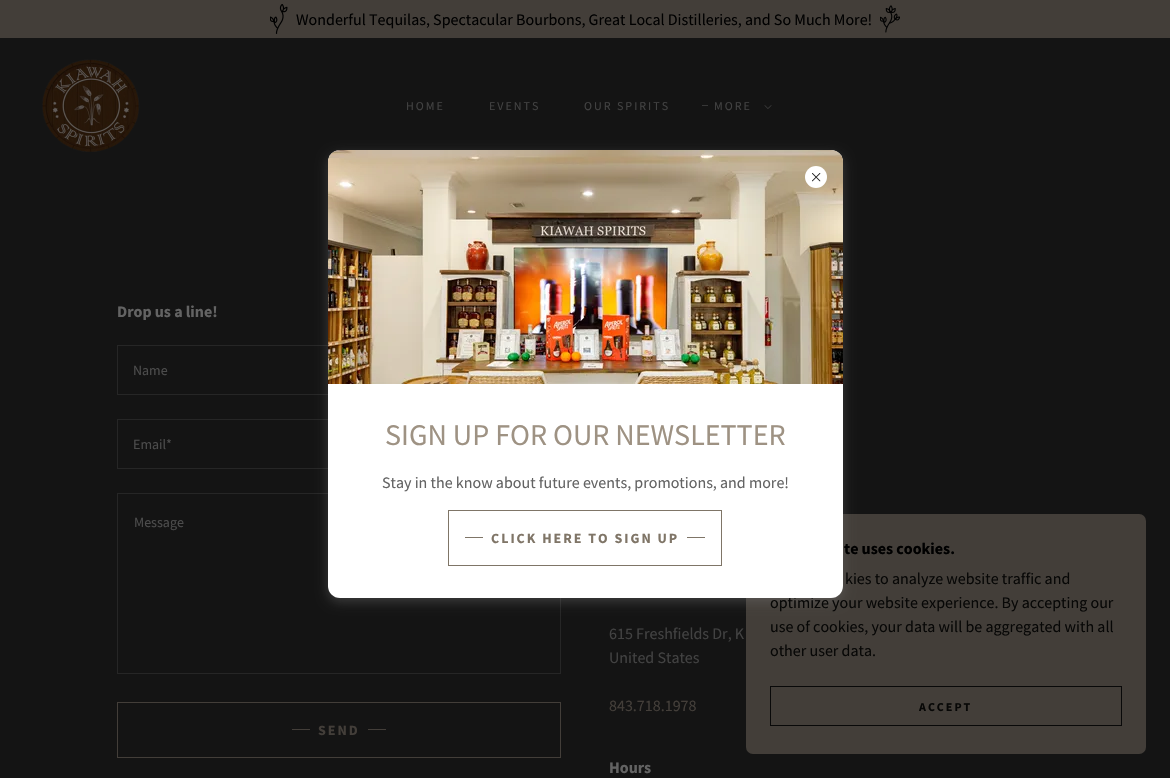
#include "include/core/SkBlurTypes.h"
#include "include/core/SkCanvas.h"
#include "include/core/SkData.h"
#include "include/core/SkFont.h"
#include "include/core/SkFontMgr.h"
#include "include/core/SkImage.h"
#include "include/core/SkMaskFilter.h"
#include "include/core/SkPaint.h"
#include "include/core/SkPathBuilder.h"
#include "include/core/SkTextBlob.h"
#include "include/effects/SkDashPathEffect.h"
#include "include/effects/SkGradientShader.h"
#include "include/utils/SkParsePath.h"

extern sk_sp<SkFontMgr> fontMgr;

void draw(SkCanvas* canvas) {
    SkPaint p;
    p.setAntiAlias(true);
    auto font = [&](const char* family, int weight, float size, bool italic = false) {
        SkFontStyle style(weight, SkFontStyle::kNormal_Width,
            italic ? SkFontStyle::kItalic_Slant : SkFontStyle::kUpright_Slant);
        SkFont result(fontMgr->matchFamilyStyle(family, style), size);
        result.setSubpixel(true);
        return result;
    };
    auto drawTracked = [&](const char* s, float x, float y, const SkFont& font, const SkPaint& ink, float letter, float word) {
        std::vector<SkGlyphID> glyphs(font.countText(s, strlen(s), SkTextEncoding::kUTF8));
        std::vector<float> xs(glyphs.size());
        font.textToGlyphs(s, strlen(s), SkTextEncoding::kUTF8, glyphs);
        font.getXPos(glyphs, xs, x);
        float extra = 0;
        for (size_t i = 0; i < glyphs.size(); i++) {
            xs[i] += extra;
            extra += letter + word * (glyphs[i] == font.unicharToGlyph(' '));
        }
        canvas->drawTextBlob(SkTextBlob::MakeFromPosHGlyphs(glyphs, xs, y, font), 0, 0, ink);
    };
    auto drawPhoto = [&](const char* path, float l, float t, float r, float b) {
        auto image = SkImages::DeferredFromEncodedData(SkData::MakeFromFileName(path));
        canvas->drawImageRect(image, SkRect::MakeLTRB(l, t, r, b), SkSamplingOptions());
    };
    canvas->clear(0xFF141414);
    p.setColor(0xFF433E39);
    canvas->drawRect(SkRect::MakeLTRB(0, 0, 1170, 38), p);
    drawPhoto("media/1.png", 270, 4, 288, 34);
    auto font1 = font("Source Sans Pro", 400, 16);
    p.setColor(0xFF000000);
    canvas->drawString("Wonderful Tequilas, Spectacular Bourbons, Great Local Distilleries, and So Much More!", 296, 25, font1, p);
    drawPhoto("media/2.png", 880, 5, 900, 33);
    drawPhoto("media/3.png", 42, 59, 140, 152);
    auto font2 = font("Source Sans Pro", 400, 12);
    p.setColor(0xFF424242);
    {
        const struct { const char* s; float x, y; } items[] = {
            {"HOME", 406, 110},
            {"EVENTS", 489, 110},
            {"OUR SPIRITS", 584, 110},
        };
        for (auto [s, x, y] : items) {
            drawTracked(s, x, y, font2, p, 2, 0);
        }
    }
    p.setColor(0xFF373737);
    canvas->drawRect(SkRect::MakeLTRB(702, 105, 708, 106), p);
    p.setColor(0xFF424242);
    drawTracked("MORE", 714, 110, font2, p, 2, 0);
    drawPhoto("media/4.png", 764, 105, 772, 109);
    auto font3 = font("Source Sans Pro", 700, 16);
    p.setColor(0xFF636363);
    canvas->drawString("Drop us a line!", 117, 317, font3, p);
    p.setStyle(SkPaint::kStroke_Style);
    p.setStrokeWidth(1);
    p.setColor(0xFF262626);
    canvas->drawRect(SkRect::MakeLTRB(117.5f, 345.5f, 560.5f, 394.5f), p);
    auto font4 = font("Source Sans Pro", 400, 14);
    p.setStyle(SkPaint::kFill_Style);
    p.setColor(0xFF4C4C4C);
    canvas->drawString("Name", 133, 375, font4, p);
    p.setStyle(SkPaint::kStroke_Style);
    p.setColor(0xFF262626);
    canvas->drawRect(SkRect::MakeLTRB(117.5f, 419.5f, 560.5f, 468.5f), p);
    p.setStyle(SkPaint::kFill_Style);
    p.setColor(0xFF4C4C4C);
    canvas->drawString("Email*", 133, 449, font4, p);
    p.setStyle(SkPaint::kStroke_Style);
    p.setColor(0xFF262626);
    canvas->drawRect(SkRect::MakeLTRB(117.5f, 493.5f, 560.5f, 673.5f), p);
    p.setStyle(SkPaint::kFill_Style);
    p.setColor(0xFF4C4C4C);
    canvas->drawString("Message", 134, 527, font4, p);
    p.setStyle(SkPaint::kStroke_Style);
    p.setColor(0xFF433E39);
    canvas->drawRect(SkRect::MakeLTRB(117.5f, 702.5f, 560.5f, 757.5f), p);
    p.setStyle(SkPaint::kFill_Style);
    canvas->drawRect(SkRect::MakeLTRB(292, 729, 310, 730), p);
    auto font5 = font("Source Sans Pro", 700, 14);
    drawTracked("SEND", 318, 735, font5, p, 2, 0);
    canvas->drawRect(SkRect::MakeLTRB(368, 729, 386, 730), p);
    p.setColor(0xFF424242);
    canvas->drawString("615 Freshfields Dr, K", 609, 639, font1, p);
    canvas->drawString("United States", 609, 663, font1, p);
    p.setColor(0xFF433E39);
    canvas->drawString("843.718.1978", 609, 711, font1, p);
    p.setColor(0xFF636363);
    canvas->drawString("Hours", 609, 773, font3, p);
    p.setColor(0xFF433E39);
    canvas->drawRoundRect(SkRect::MakeLTRB(746, 514, 1146, 754), 7, 7, p);
    p.setColor(0x66757575);
    p.setMaskFilter(SkMaskFilter::MakeBlur(kNormal_SkBlurStyle, 6));
    canvas->drawRoundRect(SkRect::MakeLTRB(328, 154, 843, 602), 12, 12, p);
    p.setMaskFilter(nullptr);
    p.setColor(0xFF070706);
    canvas->drawString("optimize your website experience. By accepting our", 770, 608, font1, p);
    p.setColor(0xFFFFFFFF);
    canvas->drawRoundRect(SkRect::MakeLTRB(328, 150, 843, 598), 12, 12, p);
    drawPhoto("media/6.png", 328, 150, 843, 384);
    canvas->drawCircle(816, 177, 11, p);
    drawPhoto("media/5.png", 812, 173, 821, 182);
    auto font6 = font("Source Sans Pro", 400, 30);
    p.setColor(0xFF9E9283);
    canvas->drawString("SIGN UP FOR OUR NEWSLETTER", 385, 445, font6, p);
    p.setColor(0xFF636363);
    canvas->drawString("Stay in the know about future events, promotions, and more!", 382, 488, font1, p);
    p.setStyle(SkPaint::kStroke_Style);
    p.setColor(0xFF7F7567);
    canvas->drawRect(SkRect::MakeLTRB(448.5f, 510.5f, 721.5f, 565.5f), p);
    p.setStyle(SkPaint::kFill_Style);
    canvas->drawRect(SkRect::MakeLTRB(465, 537, 483, 538), p);
    drawTracked("CLICK HERE TO SIGN UP", 491, 543, font5, p, 2, 0);
    canvas->drawRect(SkRect::MakeLTRB(687, 537, 705, 538), p);
    p.setColor(0xFF000000);
    canvas->drawString("te uses cookies.", 844, 554, font3, p);
    p.setColor(0xFF070706);
    {
        const struct { const char* s; float x, y; } items[] = {
            {"kies to analyze website traffic and", 845, 584},
            {"use of cookies, your data will be aggregated with all", 770, 632},
            {"other user data.", 770, 656},
        };
        for (auto [s, x, y] : items) {
            canvas->drawString(s, x, y, font1, p);
        }
    }
    p.setStyle(SkPaint::kStroke_Style);
    p.setColor(0xFF090909);
    canvas->drawRect(SkRect::MakeLTRB(770.5f, 686.5f, 1121.5f, 725.5f), p);
    auto font7 = font("Source Sans Pro", 700, 12);
    p.setStyle(SkPaint::kFill_Style);
    p.setColor(0xFF070706);
    drawTracked("ACCEPT", 919, 711, font7, p, 2, 0);
}
